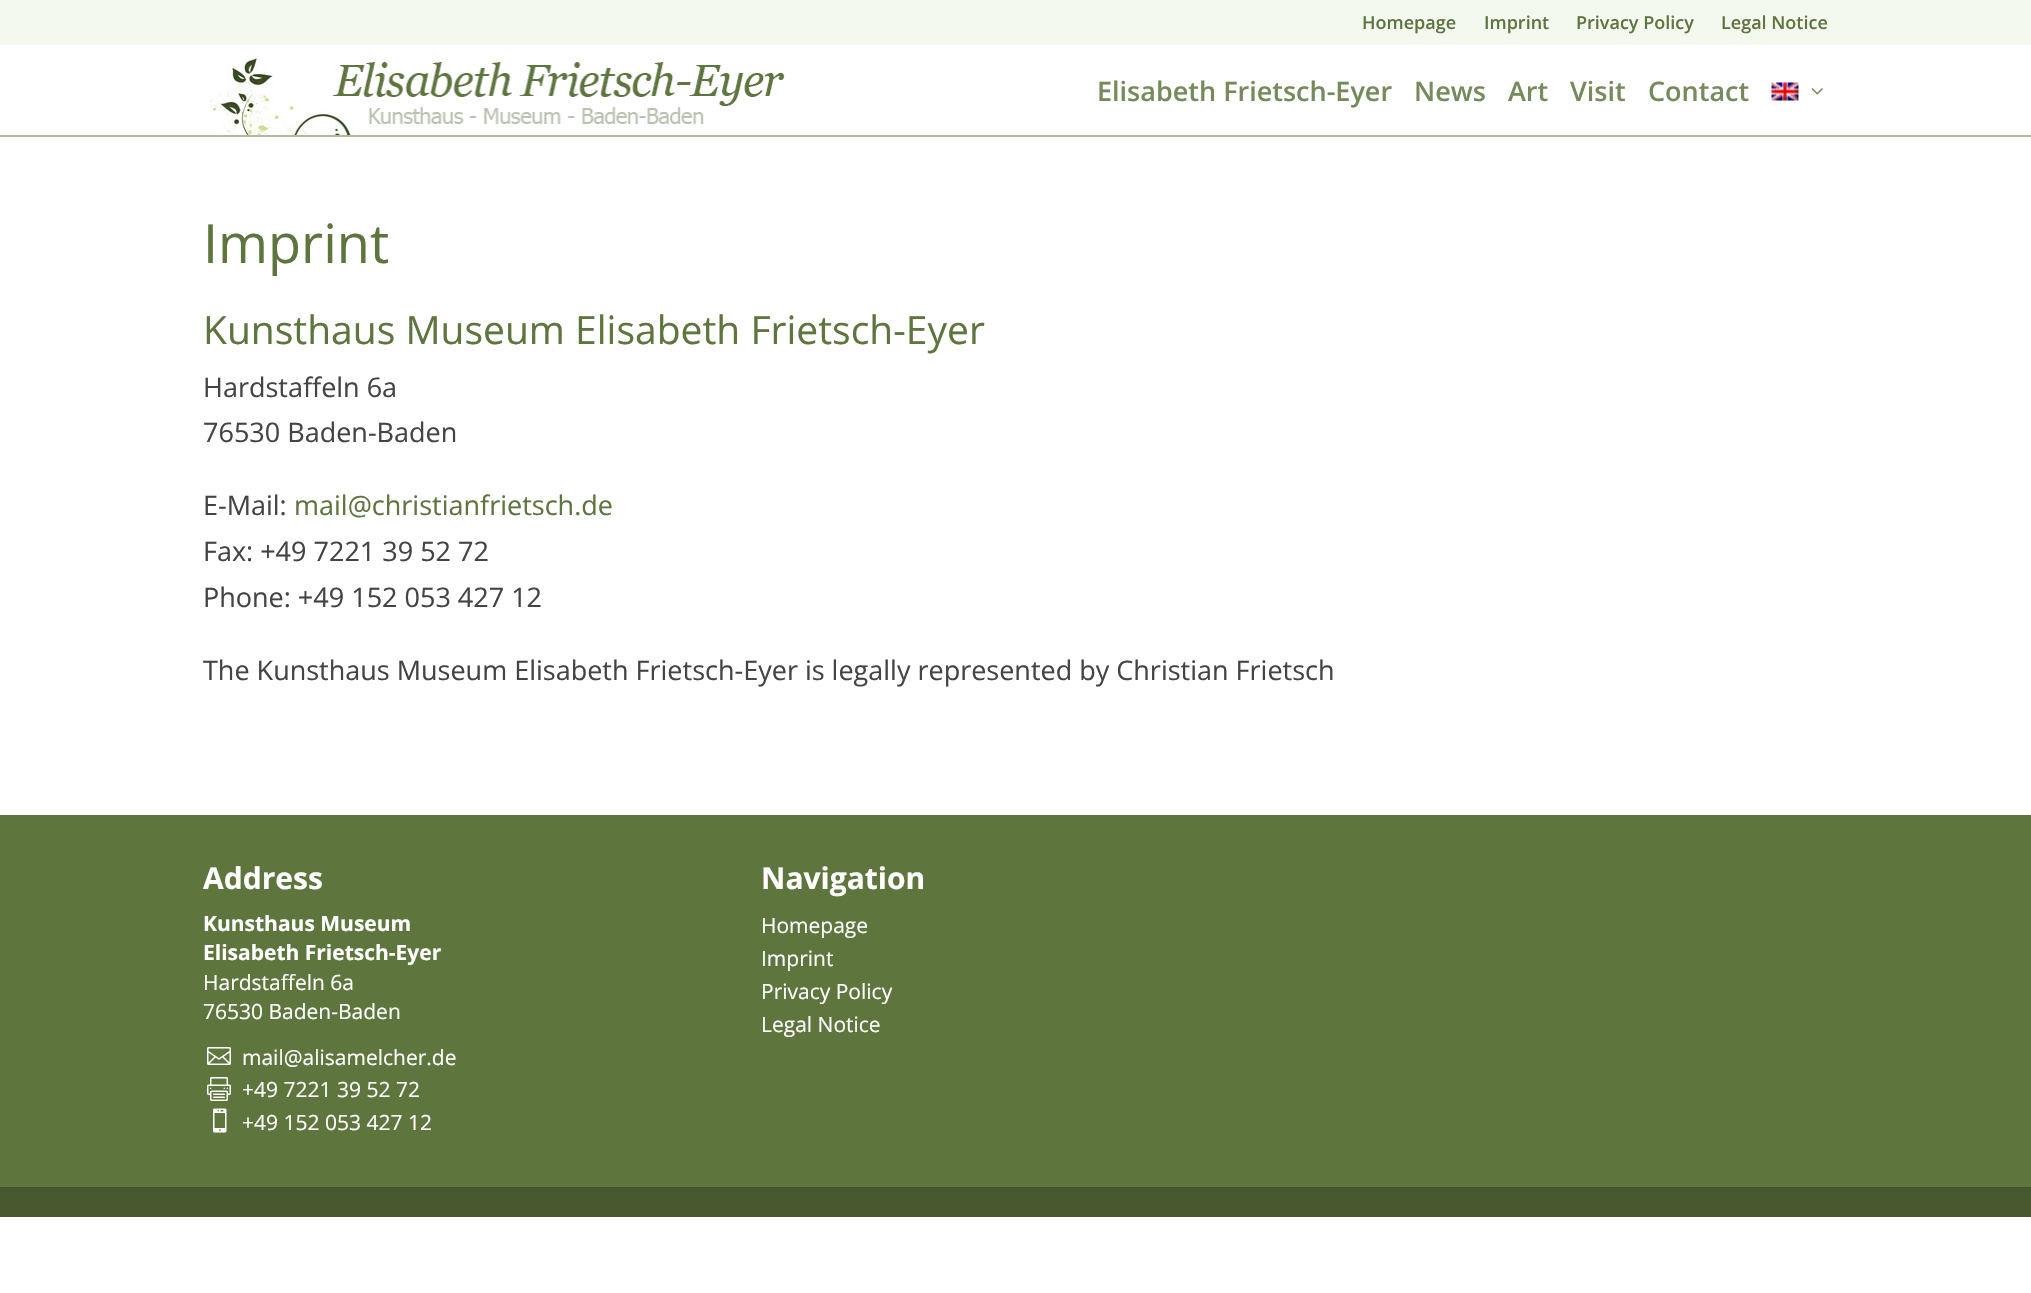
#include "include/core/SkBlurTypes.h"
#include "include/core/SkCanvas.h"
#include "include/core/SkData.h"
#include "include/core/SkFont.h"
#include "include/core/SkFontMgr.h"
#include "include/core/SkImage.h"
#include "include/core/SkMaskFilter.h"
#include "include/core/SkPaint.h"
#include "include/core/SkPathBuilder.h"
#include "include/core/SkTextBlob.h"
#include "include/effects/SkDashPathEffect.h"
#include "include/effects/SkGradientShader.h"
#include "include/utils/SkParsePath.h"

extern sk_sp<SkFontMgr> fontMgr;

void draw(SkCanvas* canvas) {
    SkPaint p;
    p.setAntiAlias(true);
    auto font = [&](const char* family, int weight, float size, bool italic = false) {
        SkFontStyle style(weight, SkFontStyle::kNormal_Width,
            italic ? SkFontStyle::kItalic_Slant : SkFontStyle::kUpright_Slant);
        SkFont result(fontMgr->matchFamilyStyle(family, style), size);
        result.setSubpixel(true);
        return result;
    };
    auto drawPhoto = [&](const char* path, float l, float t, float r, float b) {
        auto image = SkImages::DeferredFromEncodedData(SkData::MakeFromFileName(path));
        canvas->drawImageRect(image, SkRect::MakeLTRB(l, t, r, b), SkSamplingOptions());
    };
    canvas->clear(0xFFFFFFFF);
    p.setColor(0xFFF4F9F0);
    canvas->drawRect(SkRect::MakeLTRB(0, 0, 2031, 45), p);
    auto font1 = font("Open Sans", 600, 18);
    p.setColor(0xFF5E753E);
    {
        const struct { const char* s; float x, y; } items[] = {
            {"Homepage", 1362, 29},
            {"Imprint", 1484, 29},
            {"Privacy Policy", 1576, 29},
            {"Legal Notice", 1721, 29},
        };
        for (auto [s, x, y] : items) {
            canvas->drawString(s, x, y, font1, p);
        }
    }
    p.setColor(0xFFAFBA9F);
    canvas->drawRect(SkRect::MakeLTRB(0, 135, 2031, 137), p);
    drawPhoto("media/1.png", 210, 55, 785, 135);
    auto font2 = font("Open Sans", 600, 27);
    p.setColor(0xFF768A5B);
    {
        const struct { const char* s; float x, y; } items[] = {
            {"Elisabeth Frietsch-Eyer", 1097, 101},
            {"News", 1414, 101},
            {"Art", 1508, 101},
            {"Visit", 1570, 101},
            {"Contact", 1648, 101},
        };
        for (auto [s, x, y] : items) {
            canvas->drawString(s, x, y, font2, p);
        }
    }
    drawPhoto("media/2.png", 1771, 82, 1799, 101);
    drawPhoto("media/3.png", 1811, 88, 1823, 95);
    auto font3 = font("Open Sans", 400, 54);
    p.setColor(0xFF5E753E);
    canvas->drawString("Imprint", 203, 263, font3, p);
    auto font4 = font("Open Sans", 400, 39);
    canvas->drawString("Kunsthaus Museum Elisabeth Frietsch-Eyer", 203, 344, font4, p);
    auto font5 = font("Open Sans", 400, 27);
    p.setColor(0xFF444444);
    {
        const struct { const char* s; float x, y; } items[] = {
            {"Hardstaffeln 6a", 203, 397},
            {"76530 Baden-Baden", 203, 442},
            {"E-Mail:", 203, 515},
        };
        for (auto [s, x, y] : items) {
            canvas->drawString(s, x, y, font5, p);
        }
    }
    p.setColor(0xFF5E753E);
    canvas->drawString("mail@christianfrietsch.de", 294, 515, font5, p);
    p.setColor(0xFF444444);
    {
        const struct { const char* s; float x, y; } items[] = {
            {"Fax: +49 7221 39 52 72", 203, 561},
            {"Phone: +49 152 053 427 12", 203, 607},
            {"The Kunsthaus Museum Elisabeth Frietsch-Eyer is legally represented by Christian Frietsch", 203, 680},
        };
        for (auto [s, x, y] : items) {
            canvas->drawString(s, x, y, font5, p);
        }
    }
    p.setColor(0xFF5E753E);
    canvas->drawRect(SkRect::MakeLTRB(0, 815, 2031, 1187), p);
    auto font6 = font("Open Sans", 700, 30);
    p.setColor(0xFFFFFFFF);
    canvas->drawString("Address", 203, 889, font6, p);
    auto font7 = font("Open Sans", 700, 21);
    canvas->drawString("Kunsthaus Museum", 203, 931, font7, p);
    canvas->drawString("Elisabeth Frietsch-Eyer", 203, 960, font7, p);
    auto font8 = font("Open Sans", 400, 21);
    canvas->drawString("Hardstaffeln 6a", 203, 990, font8, p);
    canvas->drawString("76530 Baden-Baden", 203, 1019, font8, p);
    drawPhoto("media/4.png", 207, 1047, 231, 1065);
    canvas->drawString("mail@alisamelcher.de", 242, 1065, font8, p);
    drawPhoto("media/5.png", 207, 1077, 231, 1101);
    canvas->drawString("+49 7221 39 52 72", 242, 1097, font8, p);
    drawPhoto("media/6.png", 213, 1108, 227, 1133);
    canvas->drawString("+49 152 053 427 12", 242, 1130, font8, p);
    canvas->drawString("Navigation", 761, 889, font6, p);
    {
        const struct { const char* s; float x, y; } items[] = {
            {"Homepage", 761, 933},
            {"Imprint", 761, 966},
            {"Privacy Policy", 761, 999},
            {"Legal Notice", 761, 1032},
        };
        for (auto [s, x, y] : items) {
            canvas->drawString(s, x, y, font8, p);
        }
    }
    p.setColor(0xFF47582F);
    canvas->drawRect(SkRect::MakeLTRB(0, 1187, 2031, 1217), p);
}
